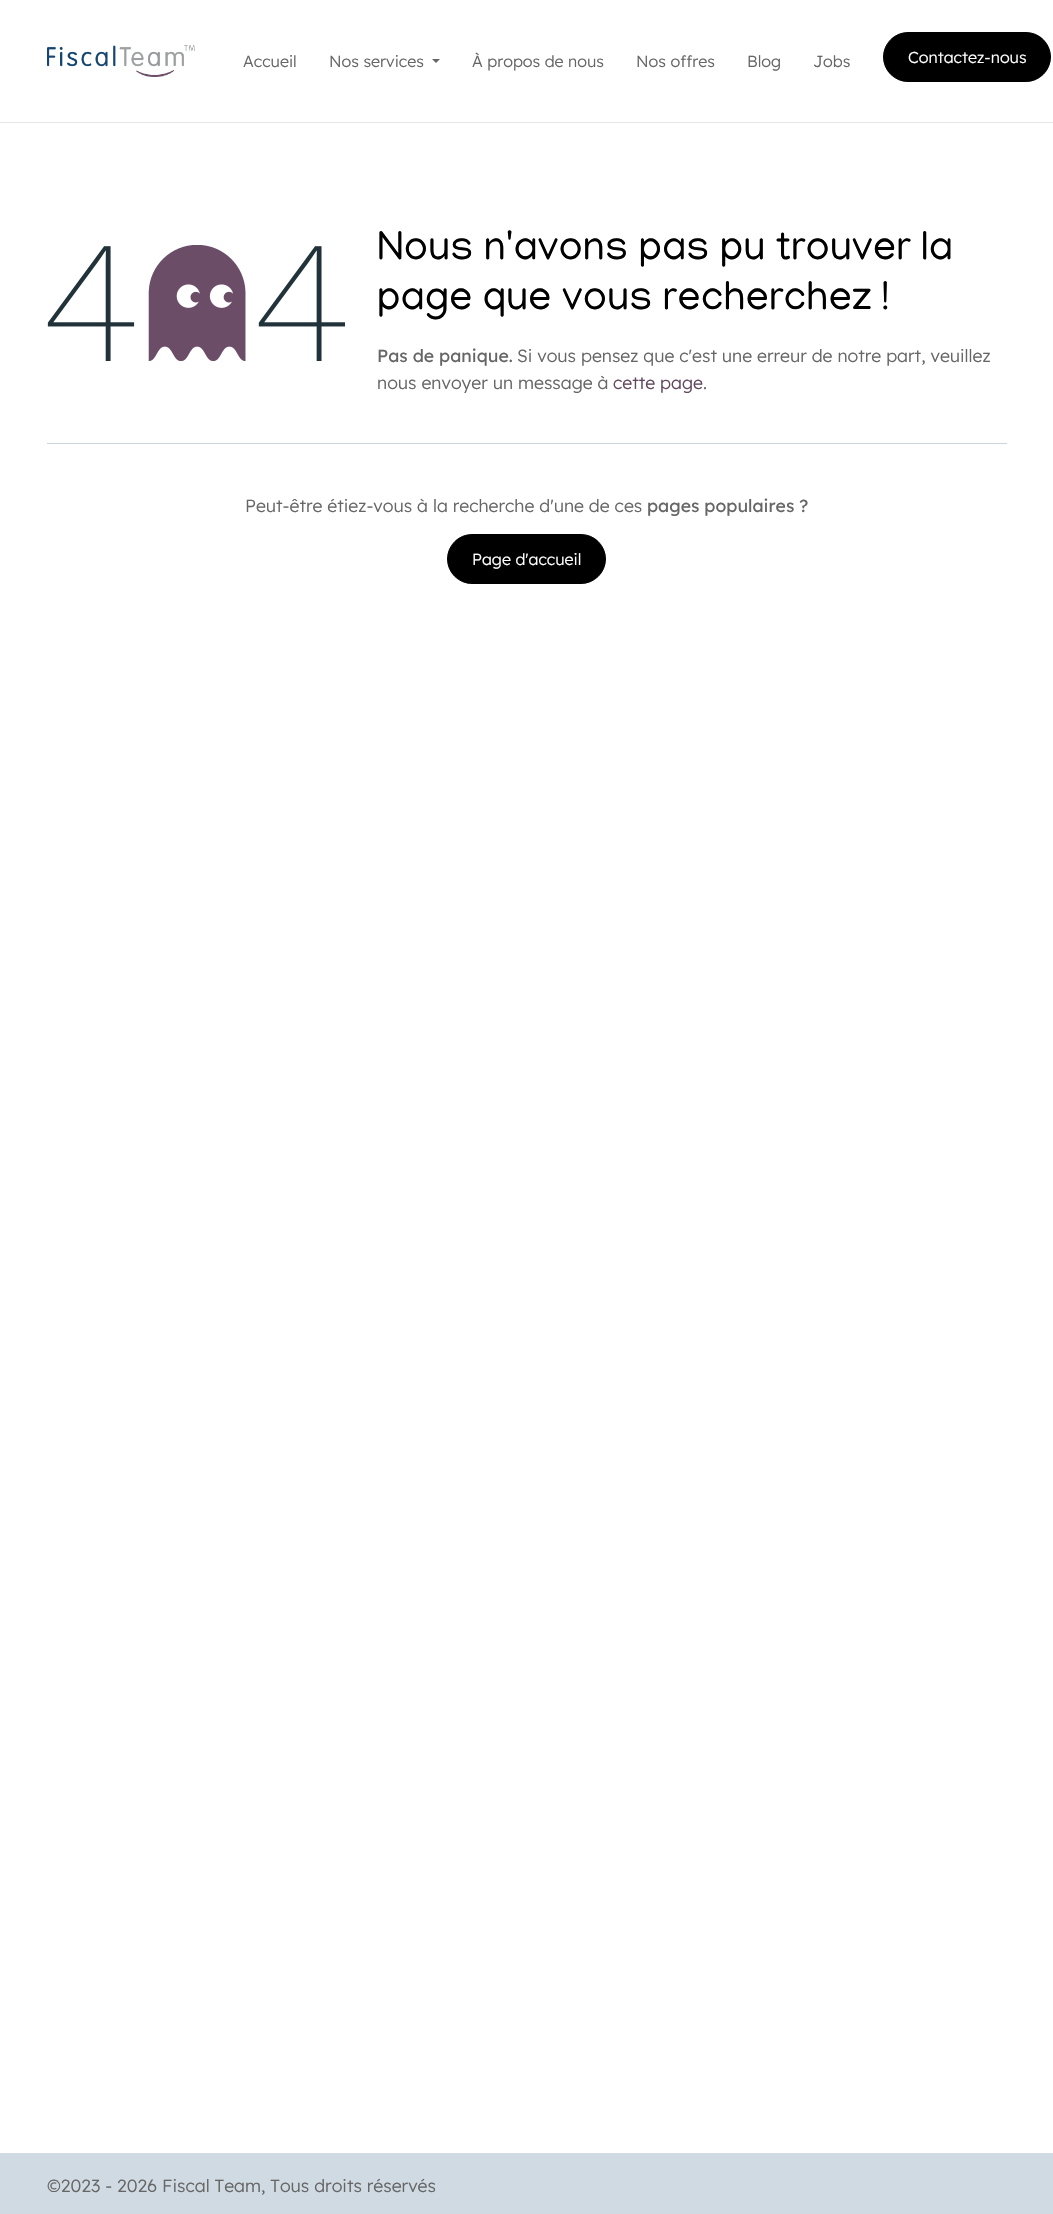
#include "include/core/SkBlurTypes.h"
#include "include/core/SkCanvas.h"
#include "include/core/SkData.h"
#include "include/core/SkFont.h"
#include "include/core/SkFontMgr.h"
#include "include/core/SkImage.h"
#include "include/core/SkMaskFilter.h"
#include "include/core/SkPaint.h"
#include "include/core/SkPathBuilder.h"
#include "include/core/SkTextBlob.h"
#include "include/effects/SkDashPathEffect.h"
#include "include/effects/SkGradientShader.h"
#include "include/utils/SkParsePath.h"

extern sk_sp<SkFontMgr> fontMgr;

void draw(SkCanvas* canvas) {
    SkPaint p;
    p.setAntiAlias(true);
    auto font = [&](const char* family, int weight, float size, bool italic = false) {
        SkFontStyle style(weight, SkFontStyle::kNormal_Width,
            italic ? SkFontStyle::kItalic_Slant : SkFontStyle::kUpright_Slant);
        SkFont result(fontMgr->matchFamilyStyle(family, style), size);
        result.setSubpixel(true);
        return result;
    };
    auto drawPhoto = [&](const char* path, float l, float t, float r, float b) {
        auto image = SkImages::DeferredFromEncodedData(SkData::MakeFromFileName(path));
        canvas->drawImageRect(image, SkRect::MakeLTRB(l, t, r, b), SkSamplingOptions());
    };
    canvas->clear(0xFFFFFFFF);
    p.setColor(0xFFE6E6E6);
    canvas->drawRect(SkRect::MakeLTRB(0, 122, 1053, 123), p);
    drawPhoto("media/1.png", 47, 45, 195, 77);
    auto font1 = font("Lexend", 300, 16);
    p.setColor(0xFF666666);
    canvas->drawString("Accueil", 243, 67, font1, p);
    canvas->drawString("Nos services", 329, 67, font1, p);
    canvas->drawPath(SkPathBuilder().moveTo(432, 59).lineTo(440, 59).lineTo(436, 63).close().detach(), p);
    {
        const struct { const char* s; float x, y; } items[] = {
            {"À propos de nous", 472, 67},
            {"Nos offres", 636, 67},
            {"Blog", 747, 67},
            {"Jobs", 813, 67},
        };
        for (auto [s, x, y] : items) {
            canvas->drawString(s, x, y, font1, p);
        }
    }
    p.setColor(0xFF000000);
    canvas->drawRoundRect(SkRect::MakeLTRB(883.5f, 32.5f, 1050.5f, 81.5f), 24.5f, 24.5f, p);
    p.setStyle(SkPaint::kStroke_Style);
    p.setStrokeWidth(1);
    canvas->drawRoundRect(SkRect::MakeLTRB(883.5f, 32.5f, 1050.5f, 81.5f), 24.5f, 24.5f, p);
    p.setStyle(SkPaint::kFill_Style);
    p.setColor(0xFFFFFFFF);
    canvas->drawString("Contactez-nous", 908, 63, font1, p);
    drawPhoto("media/2.png", 47, 245, 346, 361);
    auto font2 = font("Manjari", 400, 41.4f);
    p.setColor(0xFF000000);
    canvas->drawString("Nous n'avons pas pu trouver la", 377, 259, font2, p);
    canvas->drawString("page que vous recherchez !", 377, 309, font2, p);
    auto font3 = font("Lexend", 400, 17.6f);
    p.setColor(0xFF666666);
    canvas->drawString("Pas de panique.", 377, 362, font3, p);
    auto font4 = font("Lexend", 300, 17.6f);
    canvas->drawString("Si vous pensez que c'est une erreur de notre part, veuillez", 517, 362, font4, p);
    canvas->drawString("nous envoyer un message à", 377, 389, font4, p);
    p.setColor(0xFF62475F);
    canvas->drawString("cette page", 613, 389, font4, p);
    p.setColor(0xFF666666);
    canvas->drawString(".", 703, 389, font4, p);
    p.setColor(0xFFCED4DA);
    canvas->drawRect(SkRect::MakeLTRB(47, 443, 1007, 444), p);
    p.setColor(0xFF666666);
    canvas->drawString("Peut-être étiez-vous à la recherche d'une de ces", 245, 512, font4, p);
    canvas->drawString("pages populaires ?", 647, 512, font3, p);
    p.setColor(0xFF000000);
    canvas->drawRoundRect(SkRect::MakeLTRB(447.5f, 534.5f, 605.5f, 583.5f), 24.5f, 24.5f, p);
    p.setStyle(SkPaint::kStroke_Style);
    canvas->drawRoundRect(SkRect::MakeLTRB(447.5f, 534.5f, 605.5f, 583.5f), 24.5f, 24.5f, p);
    p.setStyle(SkPaint::kFill_Style);
    p.setColor(0xFFFFFFFF);
    canvas->drawString("Page d'accueil", 472, 565, font1, p);
    p.setColor(0xFFD0DAE2);
    canvas->drawRect(SkRect::MakeLTRB(0, 2153, 1053, 2214), p);
    p.setColor(0xFF666666);
    canvas->drawString("©2023 - 2026 Fiscal Team, Tous droits réservés", 47, 2192, font4, p);
}
